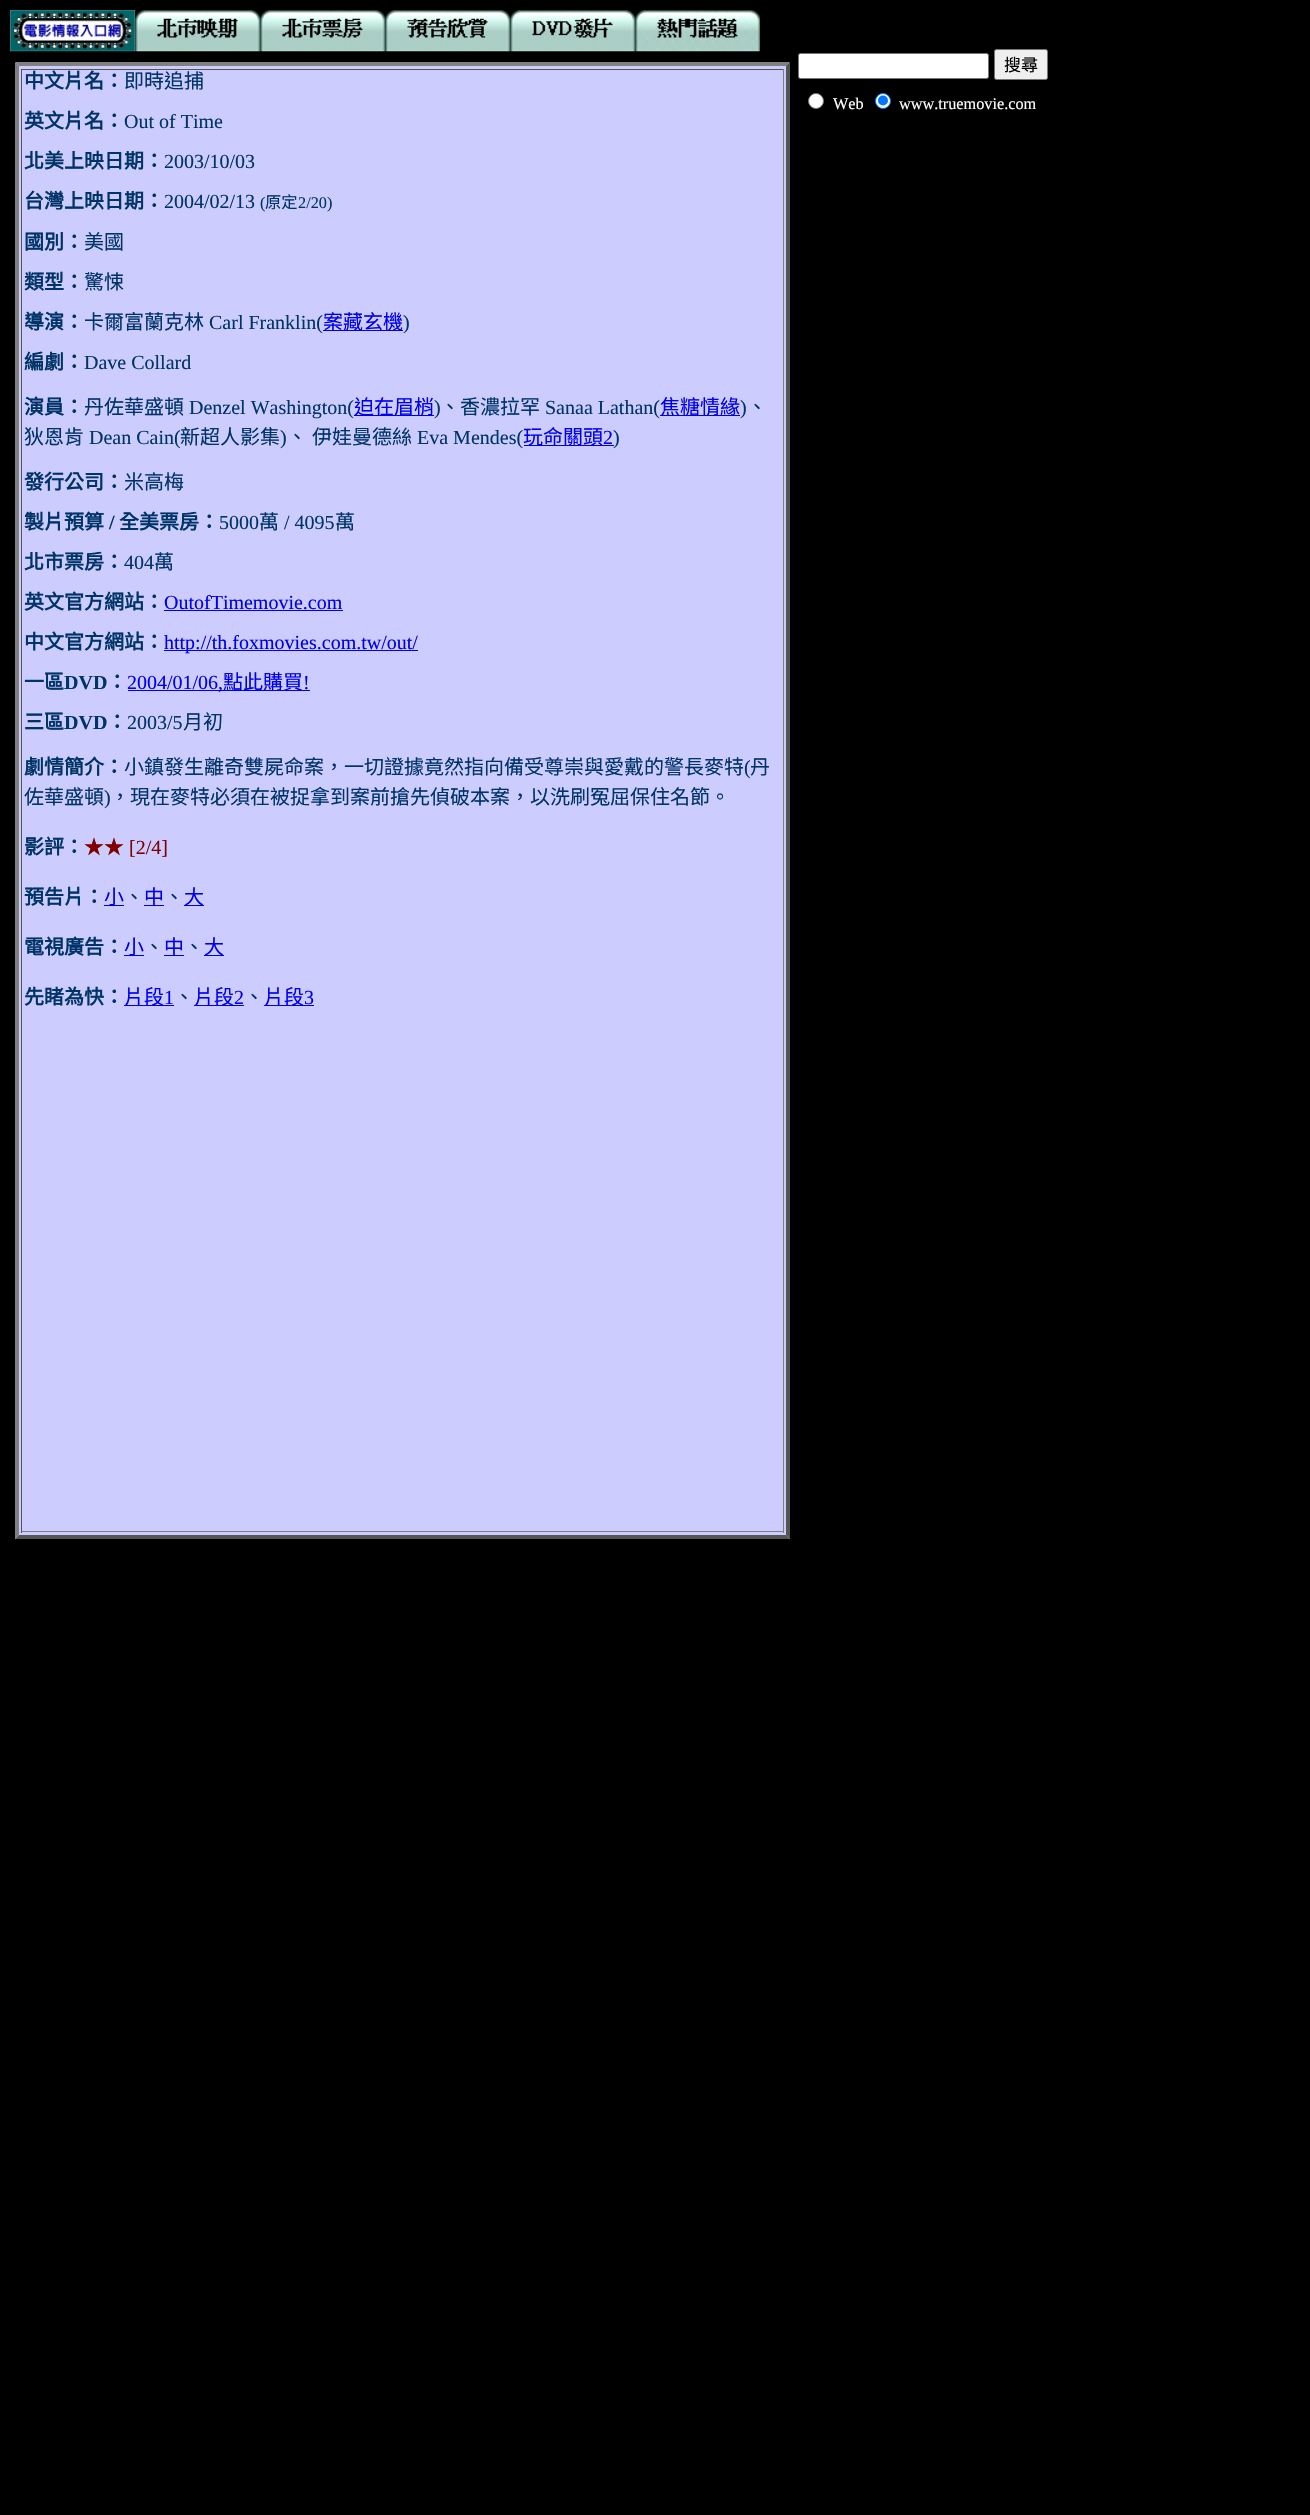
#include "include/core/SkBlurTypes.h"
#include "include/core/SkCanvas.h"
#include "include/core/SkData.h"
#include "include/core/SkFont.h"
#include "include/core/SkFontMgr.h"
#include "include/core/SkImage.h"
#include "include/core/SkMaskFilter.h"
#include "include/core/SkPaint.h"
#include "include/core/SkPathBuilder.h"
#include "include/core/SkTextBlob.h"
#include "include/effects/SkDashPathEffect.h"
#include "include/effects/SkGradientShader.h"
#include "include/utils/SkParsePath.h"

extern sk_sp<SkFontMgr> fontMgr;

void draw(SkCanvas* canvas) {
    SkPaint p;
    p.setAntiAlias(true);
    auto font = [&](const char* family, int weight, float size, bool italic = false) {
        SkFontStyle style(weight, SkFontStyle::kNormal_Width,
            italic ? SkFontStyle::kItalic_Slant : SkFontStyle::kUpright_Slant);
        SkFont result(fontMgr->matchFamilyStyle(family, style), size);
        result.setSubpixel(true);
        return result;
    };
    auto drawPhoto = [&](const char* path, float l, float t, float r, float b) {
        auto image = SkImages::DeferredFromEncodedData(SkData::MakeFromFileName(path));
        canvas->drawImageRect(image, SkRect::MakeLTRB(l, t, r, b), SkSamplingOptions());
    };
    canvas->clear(0xFF000000);
    drawPhoto("media/1.png", 10, 10, 135, 52);
    drawPhoto("media/2.png", 135, 10, 260, 52);
    drawPhoto("media/3.png", 260, 10, 385, 52);
    drawPhoto("media/4.png", 385, 10, 510, 52);
    drawPhoto("media/5.png", 510, 10, 635, 52);
    drawPhoto("media/6.png", 635, 10, 760, 52);
    p.setColor(0xFFCCCCFF);
    canvas->drawRect(SkRect::MakeLTRB(15, 63, 790, 1539), p);
    p.setColor(0xFF808080);
    canvas->drawPath(SkPathBuilder().moveTo(15, 62).lineTo(790, 62).lineTo(786, 66).lineTo(19, 66).close().detach(), p);
    p.setColor(0xFF555555);
    canvas->drawPath(SkPathBuilder().moveTo(790, 62).lineTo(790, 1539).lineTo(786, 1535).lineTo(786, 66).close().detach(), p);
    canvas->drawPath(SkPathBuilder().moveTo(790, 1539).lineTo(15, 1539).lineTo(19, 1535).lineTo(786, 1535).close().detach(), p);
    p.setColor(0xFF808080);
    canvas->drawPath(SkPathBuilder().moveTo(15, 1539).lineTo(15, 62).lineTo(19, 66).lineTo(19, 1535).close().detach(), p);
    {
        const struct { float l, t, r, b; SkColor color; } items[] = {
            {21, 69, 784, 70, 0xFF555555},
            {783, 69, 784, 1533, 0xFF808080},
            {21, 1531, 784, 1532, 0xFF808080},
            {21, 69, 22, 1533, 0xFF555555},
        };
        for (auto [l, t, r, b, color] : items) {
            p.setColor(color);
            canvas->drawRect(SkRect::MakeLTRB(l, t, r, b), p);
        }
    }
    auto font1 = font("Noto Sans CJK TC", 700, 20);
    p.setColor(0xFF003366);
    canvas->drawString("中文片名：", 24, 88, font1, p);
    auto font2 = font("Noto Sans CJK TC", 400, 20);
    canvas->drawString("即時追捕", 124, 88, font2, p);
    canvas->drawString("英文片名：", 24, 128, font1, p);
    auto font3 = font("Liberation Serif", 400, 20);
    canvas->drawString("Out of Time", 124, 128, font3, p);
    canvas->drawString("北美上映日期：", 24, 168, font1, p);
    canvas->drawString("2003/10/03", 164, 168, font3, p);
    canvas->drawString("台灣上映日期：", 24, 208, font1, p);
    canvas->drawString("2004/02/13", 164, 208, font3, p);
    auto font4 = font("Liberation Serif", 400, 16.25f);
    canvas->drawString("(", 260, 208, font4, p);
    auto font5 = font("Noto Sans CJK TC", 400, 16.25f);
    canvas->drawString("原定", 265, 208, font5, p);
    canvas->drawString("2/20)", 298, 208, font4, p);
    canvas->drawString("國別：", 24, 249, font1, p);
    canvas->drawString("美國", 84, 249, font2, p);
    canvas->drawString("類型：", 24, 289, font1, p);
    canvas->drawString("驚悚", 84, 289, font2, p);
    canvas->drawString("導演：", 24, 329, font1, p);
    canvas->drawString("卡爾富蘭克林", 84, 329, font2, p);
    canvas->drawString("Carl Franklin(", 209, 329, font3, p);
    p.setColor(0xFF0000EE);
    canvas->drawRect(SkRect::MakeLTRB(323, 330, 403, 331), p);
    canvas->drawString("案藏玄機", 323, 329, font2, p);
    p.setColor(0xFF003366);
    canvas->drawString(")", 403, 329, font3, p);
    canvas->drawString("編劇：", 24, 369, font1, p);
    canvas->drawString("Dave Collard", 84, 369, font3, p);
    canvas->drawString("演員：", 24, 414, font1, p);
    canvas->drawString("丹佐華盛頓", 84, 414, font2, p);
    canvas->drawString("Denzel Washington(", 189, 414, font3, p);
    p.setColor(0xFF0000EE);
    canvas->drawRect(SkRect::MakeLTRB(354, 415, 434, 416), p);
    canvas->drawString("迫在眉梢", 354, 414, font2, p);
    p.setColor(0xFF003366);
    canvas->drawString(")", 434, 414, font3, p);
    canvas->drawString("、香濃拉罕", 440, 414, font2, p);
    canvas->drawString("Sanaa Lathan(", 545, 414, font3, p);
    p.setColor(0xFF0000EE);
    canvas->drawRect(SkRect::MakeLTRB(660, 415, 740, 416), p);
    canvas->drawString("焦糖情緣", 660, 414, font2, p);
    p.setColor(0xFF003366);
    canvas->drawString(")", 740, 414, font3, p);
    canvas->drawString("、", 747, 414, font2, p);
    canvas->drawString("狄恩肯", 24, 444, font2, p);
    canvas->drawString("Dean Cain(", 89, 444, font3, p);
    canvas->drawString("新超人影集", 180, 444, font2, p);
    canvas->drawString(")", 280, 444, font3, p);
    canvas->drawString("、", 287, 444, font2, p);
    canvas->drawString("伊娃曼德絲", 312, 444, font2, p);
    canvas->drawString("Eva Mendes(", 417, 444, font3, p);
    p.setColor(0xFF0000EE);
    canvas->drawRect(SkRect::MakeLTRB(524, 445, 614, 446), p);
    canvas->drawString("玩命關頭", 523, 444, font2, p);
    canvas->drawString("2", 603, 444, font3, p);
    p.setColor(0xFF003366);
    canvas->drawString(")", 613, 444, font3, p);
    canvas->drawString("發行公司：", 24, 489, font1, p);
    canvas->drawString("米高梅", 124, 489, font2, p);
    canvas->drawString("製片預算", 24, 529, font1, p);
    auto font6 = font("Liberation Serif", 700, 20);
    canvas->drawString("/", 109, 529, font6, p);
    canvas->drawString("全美票房：", 119, 529, font1, p);
    canvas->drawString("5000", 219, 529, font3, p);
    canvas->drawString("萬", 259, 529, font2, p);
    canvas->drawString("/ 4095", 284, 529, font3, p);
    canvas->drawString("萬", 335, 529, font2, p);
    canvas->drawString("北市票房：", 24, 569, font1, p);
    canvas->drawString("404", 124, 569, font3, p);
    canvas->drawString("萬", 154, 569, font2, p);
    canvas->drawString("英文官方網站：", 24, 609, font1, p);
    p.setColor(0xFF0000EE);
    canvas->drawString("OutofTimemovie.com", 164, 609, font3, p);
    canvas->drawRect(SkRect::MakeLTRB(164, 610, 343, 611), p);
    p.setColor(0xFF003366);
    canvas->drawString("中文官方網站：", 24, 649, font1, p);
    p.setColor(0xFF0000EE);
    canvas->drawRect(SkRect::MakeLTRB(164, 650, 418, 651), p);
    canvas->drawString("http://th.foxmovies.com.tw/out/", 164, 649, font3, p);
    p.setColor(0xFF003366);
    canvas->drawString("一區", 24, 689, font1, p);
    canvas->drawString("DVD", 64, 689, font6, p);
    canvas->drawString("：", 107, 689, font1, p);
    p.setColor(0xFF0000EE);
    canvas->drawRect(SkRect::MakeLTRB(128, 690, 310, 691), p);
    canvas->drawString("2004/01/06,", 127, 689, font3, p);
    canvas->drawString("點此購買", 223, 689, font2, p);
    canvas->drawString("!", 303, 689, font3, p);
    p.setColor(0xFF003366);
    canvas->drawString("三區", 24, 729, font1, p);
    canvas->drawString("DVD", 64, 729, font6, p);
    canvas->drawString("：", 107, 729, font1, p);
    canvas->drawString("2003/5", 127, 729, font3, p);
    canvas->drawString("月初", 183, 729, font2, p);
    canvas->drawString("劇情簡介：", 24, 774, font1, p);
    canvas->drawString("小鎮發生離奇雙屍命案，一切證據竟然指向備受尊崇與愛戴的警長麥特", 124, 774, font2, p);
    canvas->drawString("(", 744, 774, font3, p);
    canvas->drawString("丹", 750, 774, font2, p);
    canvas->drawString("佐華盛頓", 24, 804, font2, p);
    canvas->drawString(")", 104, 804, font3, p);
    canvas->drawString("，現在麥特必須在被捉拿到案前搶先偵破本案，以洗刷冤屈保住名節。", 110, 804, font2, p);
    canvas->drawString("影評：", 24, 854, font1, p);
    p.setColor(0xFF800000);
    canvas->drawString("★★", 84, 854, font2, p);
    canvas->drawString("[2/4]", 129, 854, font3, p);
    p.setColor(0xFF003366);
    canvas->drawString("預告片：", 24, 904, font1, p);
    p.setColor(0xFF0000EE);
    canvas->drawRect(SkRect::MakeLTRB(104, 905, 124, 906), p);
    canvas->drawString("小", 104, 904, font2, p);
    p.setColor(0xFF003366);
    canvas->drawString("、", 124, 904, font2, p);
    p.setColor(0xFF0000EE);
    canvas->drawRect(SkRect::MakeLTRB(144, 905, 164, 906), p);
    canvas->drawString("中", 144, 904, font2, p);
    p.setColor(0xFF003366);
    canvas->drawString("、", 164, 904, font2, p);
    p.setColor(0xFF0000EE);
    canvas->drawRect(SkRect::MakeLTRB(184, 905, 204, 906), p);
    canvas->drawString("大", 184, 904, font2, p);
    p.setColor(0xFF003366);
    canvas->drawString("電視廣告：", 24, 954, font1, p);
    p.setColor(0xFF0000EE);
    canvas->drawRect(SkRect::MakeLTRB(124, 955, 144, 956), p);
    canvas->drawString("小", 124, 954, font2, p);
    p.setColor(0xFF003366);
    canvas->drawString("、", 144, 954, font2, p);
    p.setColor(0xFF0000EE);
    canvas->drawRect(SkRect::MakeLTRB(164, 955, 184, 956), p);
    canvas->drawString("中", 164, 954, font2, p);
    p.setColor(0xFF003366);
    canvas->drawString("、", 184, 954, font2, p);
    p.setColor(0xFF0000EE);
    canvas->drawRect(SkRect::MakeLTRB(204, 955, 224, 956), p);
    canvas->drawString("大", 204, 954, font2, p);
    p.setColor(0xFF003366);
    canvas->drawString("先睹為快：", 24, 1004, font1, p);
    p.setColor(0xFF0000EE);
    canvas->drawRect(SkRect::MakeLTRB(124, 1005, 174, 1006), p);
    canvas->drawString("片段", 124, 1004, font2, p);
    canvas->drawString("1", 164, 1004, font3, p);
    p.setColor(0xFF003366);
    canvas->drawString("、", 174, 1004, font2, p);
    p.setColor(0xFF0000EE);
    canvas->drawRect(SkRect::MakeLTRB(194, 1005, 244, 1006), p);
    canvas->drawString("片段", 194, 1004, font2, p);
    canvas->drawString("2", 234, 1004, font3, p);
    p.setColor(0xFF003366);
    canvas->drawString("、", 244, 1004, font2, p);
    p.setColor(0xFF0000EE);
    canvas->drawRect(SkRect::MakeLTRB(264, 1005, 314, 1006), p);
    canvas->drawString("片段", 264, 1004, font2, p);
    canvas->drawString("3", 304, 1004, font3, p);
    p.setColor(0xFFFFFFFF);
    canvas->drawRoundRect(SkRect::MakeLTRB(798.5f, 53.5f, 988.5f, 78.5f), 2, 2, p);
    p.setStyle(SkPaint::kStroke_Style);
    p.setStrokeWidth(1);
    p.setColor(0xFF767676);
    canvas->drawRoundRect(SkRect::MakeLTRB(798.5f, 53.5f, 988.5f, 78.5f), 2, 2, p);
    p.setStyle(SkPaint::kFill_Style);
    p.setColor(0xFFEFEFEF);
    canvas->drawRoundRect(SkRect::MakeLTRB(994.5f, 49.5f, 1047.5f, 79.5f), 2, 2, p);
    p.setStyle(SkPaint::kStroke_Style);
    p.setColor(0xFF767676);
    canvas->drawRoundRect(SkRect::MakeLTRB(994.5f, 49.5f, 1047.5f, 79.5f), 2, 2, p);
    auto font7 = font("Noto Sans CJK TC", 400, 17);
    p.setStyle(SkPaint::kFill_Style);
    p.setColor(0xFF000000);
    canvas->drawString("搜尋", 1004, 71, font7, p);
    p.setColor(0xFFFFFFFF);
    canvas->drawCircle(816, 101, 7.5f, p);
    p.setStyle(SkPaint::kStroke_Style);
    p.setColor(0xFF767676);
    canvas->drawCircle(816, 101, 7.5f, p);
    p.setStyle(SkPaint::kFill_Style);
    p.setColor(0xFFFFFFFF);
    canvas->drawString("Web", 833, 109, font4, p);
    canvas->drawCircle(883, 101, 7.5f, p);
    p.setStyle(SkPaint::kStroke_Style);
    p.setColor(0xFF0075FF);
    canvas->drawCircle(883, 101, 7.5f, p);
    p.setStyle(SkPaint::kFill_Style);
    canvas->drawCircle(883, 100.5f, 5, p);
    p.setColor(0xFFFFFFFF);
    canvas->drawString("www.truemovie.com", 899, 109, font4, p);
}
